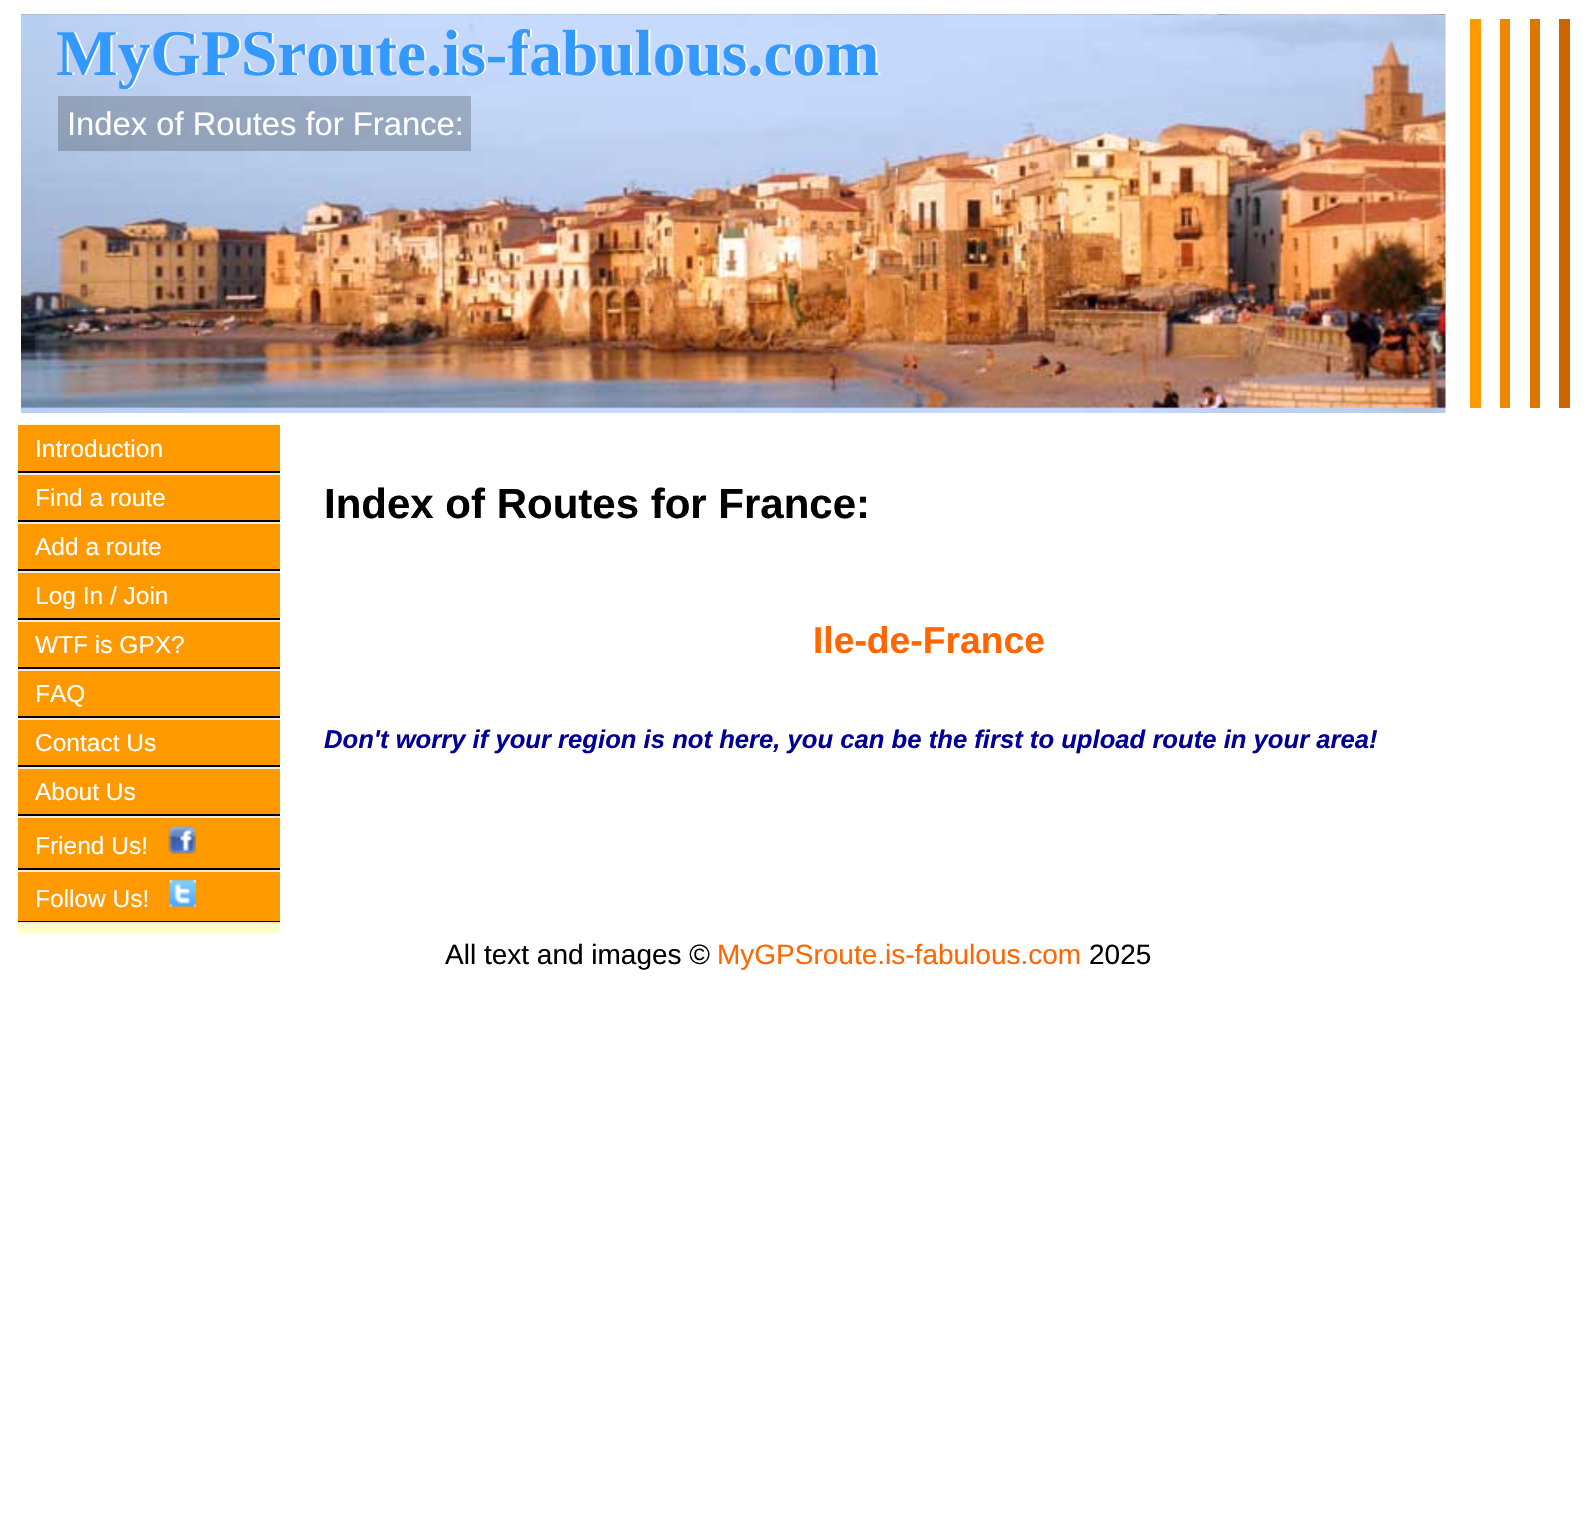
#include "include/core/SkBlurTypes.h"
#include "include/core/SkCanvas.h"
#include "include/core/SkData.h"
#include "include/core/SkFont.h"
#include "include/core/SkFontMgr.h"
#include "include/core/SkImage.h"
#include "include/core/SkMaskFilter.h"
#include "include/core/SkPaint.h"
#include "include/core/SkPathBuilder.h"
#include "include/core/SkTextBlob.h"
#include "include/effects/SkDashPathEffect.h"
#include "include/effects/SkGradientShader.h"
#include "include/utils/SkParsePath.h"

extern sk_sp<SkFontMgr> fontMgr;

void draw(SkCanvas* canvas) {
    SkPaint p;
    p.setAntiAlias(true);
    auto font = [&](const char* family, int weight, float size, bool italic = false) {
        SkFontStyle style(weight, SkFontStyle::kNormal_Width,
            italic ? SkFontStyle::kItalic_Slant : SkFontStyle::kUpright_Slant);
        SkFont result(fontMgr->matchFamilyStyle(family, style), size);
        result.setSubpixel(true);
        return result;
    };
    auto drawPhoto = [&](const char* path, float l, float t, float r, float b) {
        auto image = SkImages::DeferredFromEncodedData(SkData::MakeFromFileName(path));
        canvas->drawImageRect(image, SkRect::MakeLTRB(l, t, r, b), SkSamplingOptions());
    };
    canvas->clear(0xFFFFFFFF);
    drawPhoto("media/1.png", 21, 14, 1446, 413);
    auto font1 = font("Liberation Serif", 700, 65.3f);
    p.setColor(0xFFFFFFFF);
    canvas->drawString("MyGPSroute.is-fabulous.com", 58, 75, font1, p);
    p.setColor(0xFF3399FF);
    canvas->drawString("MyGPSroute.is-fabulous.com", 56, 75, font1, p);
    p.setColor(0x33000000);
    canvas->drawRect(SkRect::MakeLTRB(58, 96, 471, 151), p);
    auto font2 = font("Liberation Sans", 400, 32.75f);
    p.setColor(0xFFFFFFFF);
    canvas->drawString("Index of Routes for France:", 67, 135, font2, p);
    {
        const struct { float l, t, r, b; SkColor color; } items[] = {
            {1470, 19, 1481, 408, 0xFFFF9900},
            {1500, 19, 1510, 408, 0xFFEE8800},
            {1530, 19, 1540, 408, 0xFFDD7700},
            {1559, 19, 1570, 408, 0xFFCC6600},
            {18, 424, 280, 933, 0xFFFFFFCC},
            {18, 425, 280, 921, 0xFFFF9900},
        };
        for (auto [l, t, r, b, color] : items) {
            p.setColor(color);
            canvas->drawRect(SkRect::MakeLTRB(l, t, r, b), p);
        }
    }
    auto font3 = font("Liberation Sans", 400, 24.5f);
    p.setColor(0xFFFFFFFF);
    canvas->drawString("Introduction", 35, 457, font3, p);
    p.setColor(0xFF000000);
    canvas->drawRect(SkRect::MakeLTRB(18, 471, 280, 473), p);
    p.setColor(0xFFF0EAE1);
    canvas->drawRect(SkRect::MakeLTRB(18, 473, 280, 475), p);
    p.setColor(0xFFFFFFFF);
    canvas->drawString("Find a route", 35, 506, font3, p);
    p.setColor(0xFF000000);
    canvas->drawRect(SkRect::MakeLTRB(18, 520, 280, 522), p);
    p.setColor(0xFFF0EAE1);
    canvas->drawRect(SkRect::MakeLTRB(18, 522, 280, 524), p);
    p.setColor(0xFFFFFFFF);
    canvas->drawString("Add a route", 35, 555, font3, p);
    p.setColor(0xFF000000);
    canvas->drawRect(SkRect::MakeLTRB(18, 569, 280, 571), p);
    p.setColor(0xFFF0EAE1);
    canvas->drawRect(SkRect::MakeLTRB(18, 571, 280, 573), p);
    p.setColor(0xFFFFFFFF);
    canvas->drawString("Log In / Join", 35, 604, font3, p);
    p.setColor(0xFF000000);
    canvas->drawRect(SkRect::MakeLTRB(18, 618, 280, 620), p);
    p.setColor(0xFFF0EAE1);
    canvas->drawRect(SkRect::MakeLTRB(18, 620, 280, 622), p);
    p.setColor(0xFFFFFFFF);
    canvas->drawString("WTF is GPX?", 35, 653, font3, p);
    p.setColor(0xFF000000);
    canvas->drawRect(SkRect::MakeLTRB(18, 667, 280, 669), p);
    p.setColor(0xFFF0EAE1);
    canvas->drawRect(SkRect::MakeLTRB(18, 669, 280, 671), p);
    p.setColor(0xFFFFFFFF);
    canvas->drawString("FAQ", 35, 702, font3, p);
    p.setColor(0xFF000000);
    canvas->drawRect(SkRect::MakeLTRB(18, 716, 280, 718), p);
    p.setColor(0xFFF0EAE1);
    canvas->drawRect(SkRect::MakeLTRB(18, 718, 280, 720), p);
    p.setColor(0xFFFFFFFF);
    canvas->drawString("Contact Us", 35, 751, font3, p);
    p.setColor(0xFF000000);
    canvas->drawRect(SkRect::MakeLTRB(18, 765, 280, 767), p);
    p.setColor(0xFFF0EAE1);
    canvas->drawRect(SkRect::MakeLTRB(18, 767, 280, 769), p);
    p.setColor(0xFFFFFFFF);
    canvas->drawString("About Us", 35, 800, font3, p);
    p.setColor(0xFF000000);
    canvas->drawRect(SkRect::MakeLTRB(18, 814, 280, 816), p);
    p.setColor(0xFFF0EAE1);
    canvas->drawRect(SkRect::MakeLTRB(18, 816, 280, 818), p);
    p.setColor(0xFFFFFFFF);
    canvas->drawString("Friend Us!", 35, 854, font3, p);
    drawPhoto("media/2.png", 168, 826, 196, 854);
    p.setColor(0xFF000000);
    canvas->drawRect(SkRect::MakeLTRB(18, 868, 280, 870), p);
    p.setColor(0xFFF0EAE1);
    canvas->drawRect(SkRect::MakeLTRB(18, 870, 280, 872), p);
    p.setColor(0xFFFFFFFF);
    canvas->drawString("Follow Us!", 35, 907, font3, p);
    drawPhoto("media/3.png", 169, 880, 196, 907);
    p.setColor(0xFF000000);
    canvas->drawRect(SkRect::MakeLTRB(18, 921, 280, 922), p);
    p.setColor(0xFFF0EAE1);
    canvas->drawRect(SkRect::MakeLTRB(18, 922, 280, 924), p);
    auto font4 = font("Liberation Sans", 700, 42);
    p.setColor(0xFF000000);
    canvas->drawString("Index of Routes for France:", 324, 518, font4, p);
    auto font5 = font("Liberation Sans", 700, 37.25f);
    p.setColor(0xFFFF6600);
    canvas->drawString("Ile-de-France", 813, 653, font5, p);
    auto font6 = font("Liberation Sans", 700, 25.65f, true);
    p.setColor(0xFF000099);
    canvas->drawString("Don't worry if your region is not here, you can be the first to upload route in your area!", 324, 748, font6, p);
    auto font7 = font("Liberation Sans", 400, 28);
    p.setColor(0xFF000000);
    canvas->drawString("All text and images ©", 445, 964, font7, p);
    p.setColor(0xFFFF6600);
    canvas->drawString("MyGPSroute.is-fabulous.com", 717, 964, font7, p);
    p.setColor(0xFF000000);
    canvas->drawString("2025", 1089, 964, font7, p);
}
